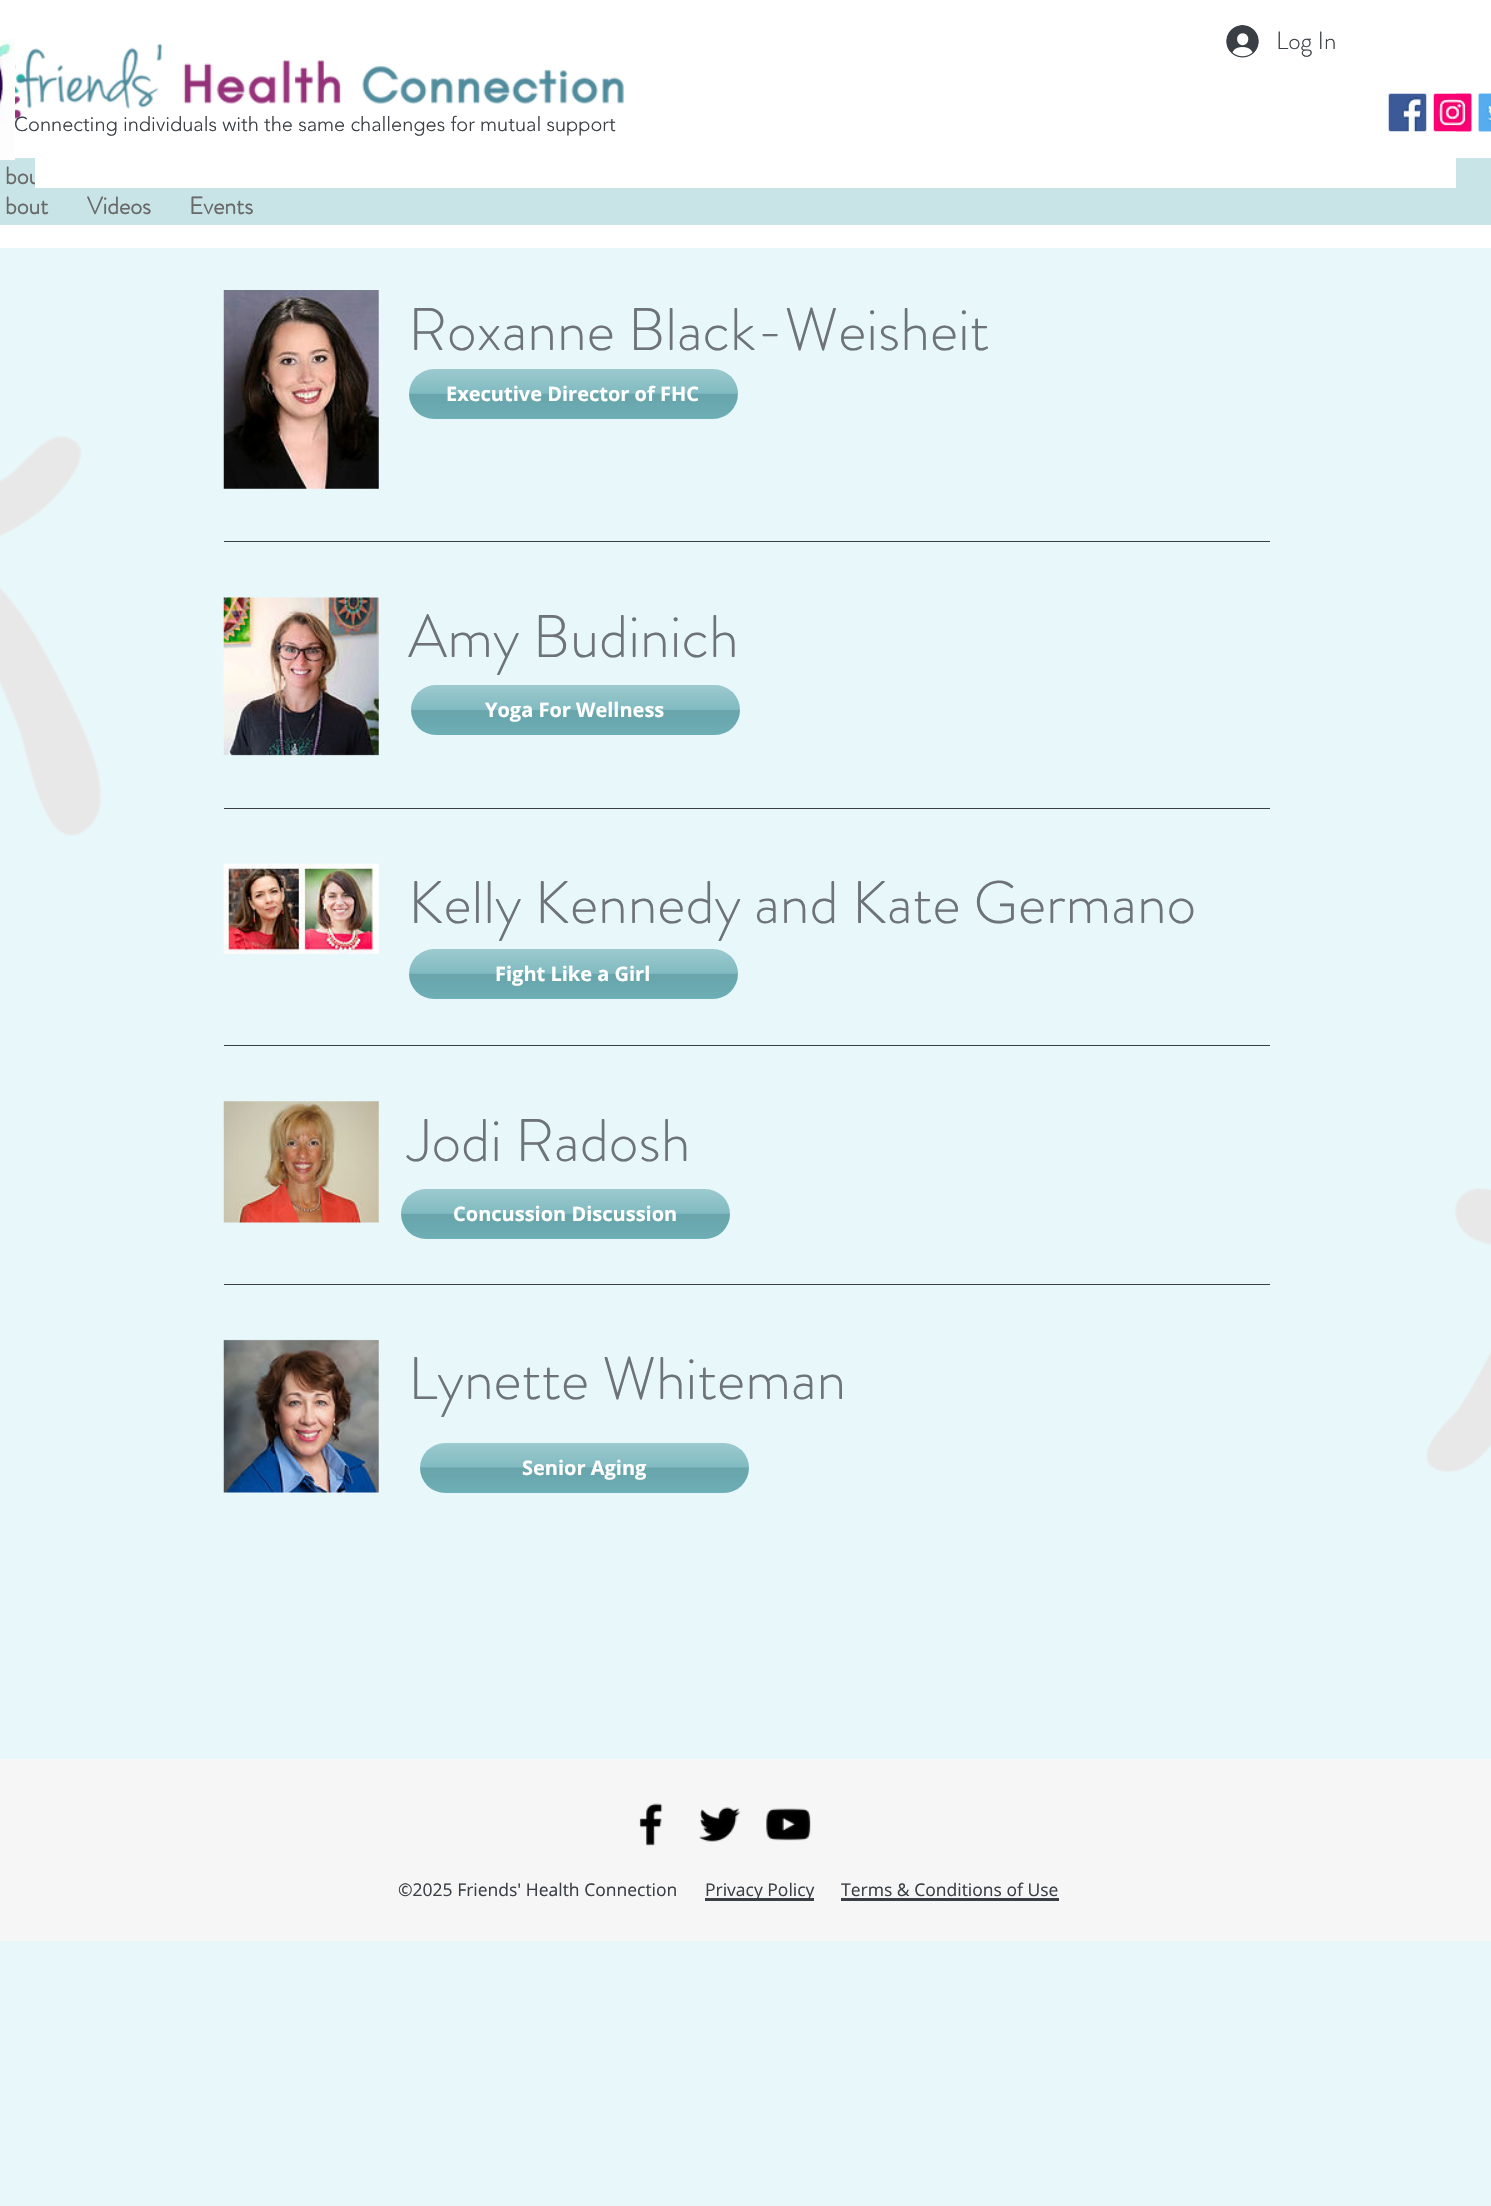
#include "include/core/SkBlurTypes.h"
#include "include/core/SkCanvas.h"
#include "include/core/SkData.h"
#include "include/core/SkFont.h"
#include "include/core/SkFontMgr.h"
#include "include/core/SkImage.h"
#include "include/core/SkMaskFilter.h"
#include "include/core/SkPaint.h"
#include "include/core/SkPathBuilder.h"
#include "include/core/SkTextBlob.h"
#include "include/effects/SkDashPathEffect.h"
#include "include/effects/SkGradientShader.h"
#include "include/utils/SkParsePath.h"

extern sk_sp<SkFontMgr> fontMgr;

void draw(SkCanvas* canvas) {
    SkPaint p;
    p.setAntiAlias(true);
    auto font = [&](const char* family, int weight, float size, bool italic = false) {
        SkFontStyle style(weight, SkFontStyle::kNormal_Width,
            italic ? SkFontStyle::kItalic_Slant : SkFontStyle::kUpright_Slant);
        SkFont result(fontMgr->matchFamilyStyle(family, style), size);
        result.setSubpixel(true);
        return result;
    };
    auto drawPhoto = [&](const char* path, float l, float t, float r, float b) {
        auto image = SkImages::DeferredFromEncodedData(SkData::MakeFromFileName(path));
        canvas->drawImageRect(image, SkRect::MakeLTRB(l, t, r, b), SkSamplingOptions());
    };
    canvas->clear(0xFFE8F8FA);
    p.setColor(0xFFFFFFFF);
    canvas->drawRect(SkRect::MakeLTRB(0, 0, 1491, 248), p);
    p.setColor(0xFFC8E4E7);
    canvas->drawRect(SkRect::MakeLTRB(0, 158, 1491, 225), p);
    drawPhoto("media/1.png", 0, 39, 15, 160);
    drawPhoto("media/7.png", 15, 64, 26, 120);
    drawPhoto("media/2.png", 16, 43, 624, 109);
    drawPhoto("media/3.png", 1226, 25, 1259, 58);
    auto font1 = font("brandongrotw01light", 300, 25);
    p.setColor(0xFF393F44);
    canvas->drawString("Log In", 1276, 49, font1, p);
    drawPhoto("media/4.png", 1388, 93, 1427, 132);
    drawPhoto("media/8.png", 1456, 93, 1472, 132);
    drawPhoto("media/5.png", 1433, 93, 1472, 132);
    drawPhoto("media/9.png", 1478, 93, 1491, 132);
    drawPhoto("media/6.png", 1478, 93, 1491, 132);
    auto font2 = font("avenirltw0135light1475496", 300, 20);
    canvas->drawString("Connecting individuals with the same challenges for mutual support", 14, 131, font2, p);
    auto font3 = font("brandongrotw01light", 700, 24);
    p.setColor(0xFF696969);
    {
        const struct { const char* s; float x, y; } items[] = {
            {"bout", 5, 214},
            {"Videos", 87, 214},
            {"Events", 189, 214},
            {"bou", 5, 184},
        };
        for (auto [s, x, y] : items) {
            canvas->drawString(s, x, y, font3, p);
        }
    }
    p.setColor(0xFFFFFFFF);
    canvas->drawRect(SkRect::MakeLTRB(35, 158, 1456, 188), p);
    drawPhoto("media/10.png", 223, 290, 379, 489);
    auto font4 = font("brandongrotw01light", 300, 60);
    p.setColor(0xFF6D7377);
    canvas->drawString("Roxanne Black-Weisheit", 408, 350, font4, p);
    p.setColor(0xFF393F44);
    canvas->drawRect(SkRect::MakeLTRB(224, 541, 1270, 542), p);
    drawPhoto("media/11.png", 223, 597, 379, 756);
    p.setColor(0xFF6D7377);
    canvas->drawString("Amy Budinich", 408, 657, font4, p);
    p.setColor(0xFF393F44);
    canvas->drawRect(SkRect::MakeLTRB(224, 808, 1270, 809), p);
    drawPhoto("media/12.png", 223, 863, 379, 954);
    p.setColor(0xFF6D7377);
    canvas->drawString("Kelly Kennedy and Kate Germano", 408, 923, font4, p);
    p.setColor(0xFF393F44);
    canvas->drawRect(SkRect::MakeLTRB(224, 1045, 1270, 1046), p);
    drawPhoto("media/13.png", 223, 1101, 379, 1223);
    p.setColor(0xFF6D7377);
    canvas->drawString("Jodi Radosh", 408, 1161, font4, p);
    p.setColor(0xFF393F44);
    canvas->drawRect(SkRect::MakeLTRB(224, 1284, 1270, 1285), p);
    drawPhoto("media/14.png", 223, 1339, 379, 1493);
    p.setColor(0xFF6D7377);
    canvas->drawString("Lynette Whiteman", 408, 1399, font4, p);
    p.setColor(0xFF70B2B9);
    canvas->drawRoundRect(SkRect::MakeLTRB(409, 369, 738, 419), 25, 25, p);
    drawPhoto("media/15.png", 409, 369, 737, 418);
    auto font5 = font("Open Sans", 700, 20);
    p.setColor(0xFFFFFFFF);
    canvas->drawString("Executive Director of FHC", 446, 401, font5, p);
    drawPhoto("media/16.png", 0, 436, 101, 836);
    p.setColor(0xFF70B2B9);
    canvas->drawRoundRect(SkRect::MakeLTRB(411, 685, 740, 735), 25, 25, p);
    drawPhoto("media/17.png", 411, 685, 740, 735);
    p.setColor(0xFFFFFFFF);
    canvas->drawString("Yoga For Wellness", 485, 717, font5, p);
    p.setColor(0xFF70B2B9);
    canvas->drawRoundRect(SkRect::MakeLTRB(409, 949, 738, 999), 25, 25, p);
    drawPhoto("media/15.png", 409, 949, 737, 998);
    p.setColor(0xFFFFFFFF);
    canvas->drawString("Fight Like a Girl", 495, 981, font5, p);
    p.setColor(0xFF70B2B9);
    canvas->drawRoundRect(SkRect::MakeLTRB(401, 1189, 730, 1239), 25, 25, p);
    drawPhoto("media/18.png", 401, 1189, 730, 1238);
    p.setColor(0xFFFFFFFF);
    canvas->drawString("Concussion Discussion", 453, 1221, font5, p);
    drawPhoto("media/19.png", 1426, 1188, 1491, 1472);
    p.setColor(0xFF70B2B9);
    canvas->drawRoundRect(SkRect::MakeLTRB(420, 1443, 749, 1493), 25, 25, p);
    drawPhoto("media/20.png", 420, 1443, 749, 1492);
    p.setColor(0xFFFFFFFF);
    canvas->drawString("Senior Aging", 522, 1475, font5, p);
    p.setColor(0xFFF6F6F6);
    canvas->drawRect(SkRect::MakeLTRB(0, 1759, 1491, 1941), p);
    drawPhoto("media/21.png", 639, 1803, 663, 1846);
    drawPhoto("media/22.png", 699, 1807, 741, 1842);
    drawPhoto("media/23.png", 766, 1808, 811, 1841);
    auto font6 = font("Open Sans", 400, 17.5f);
    p.setColor(0xFF393F44);
    canvas->drawString("©2025 Friends' Health Connection", 398, 1896, font6, p);
    canvas->drawRect(SkRect::MakeLTRB(705, 1898, 814, 1901), p);
    canvas->drawString("Privacy Policy", 705, 1896, font6, p);
    canvas->drawString("Terms & Conditions of Use", 841, 1896, font6, p);
    canvas->drawRect(SkRect::MakeLTRB(841, 1898, 1059, 1901), p);
}
